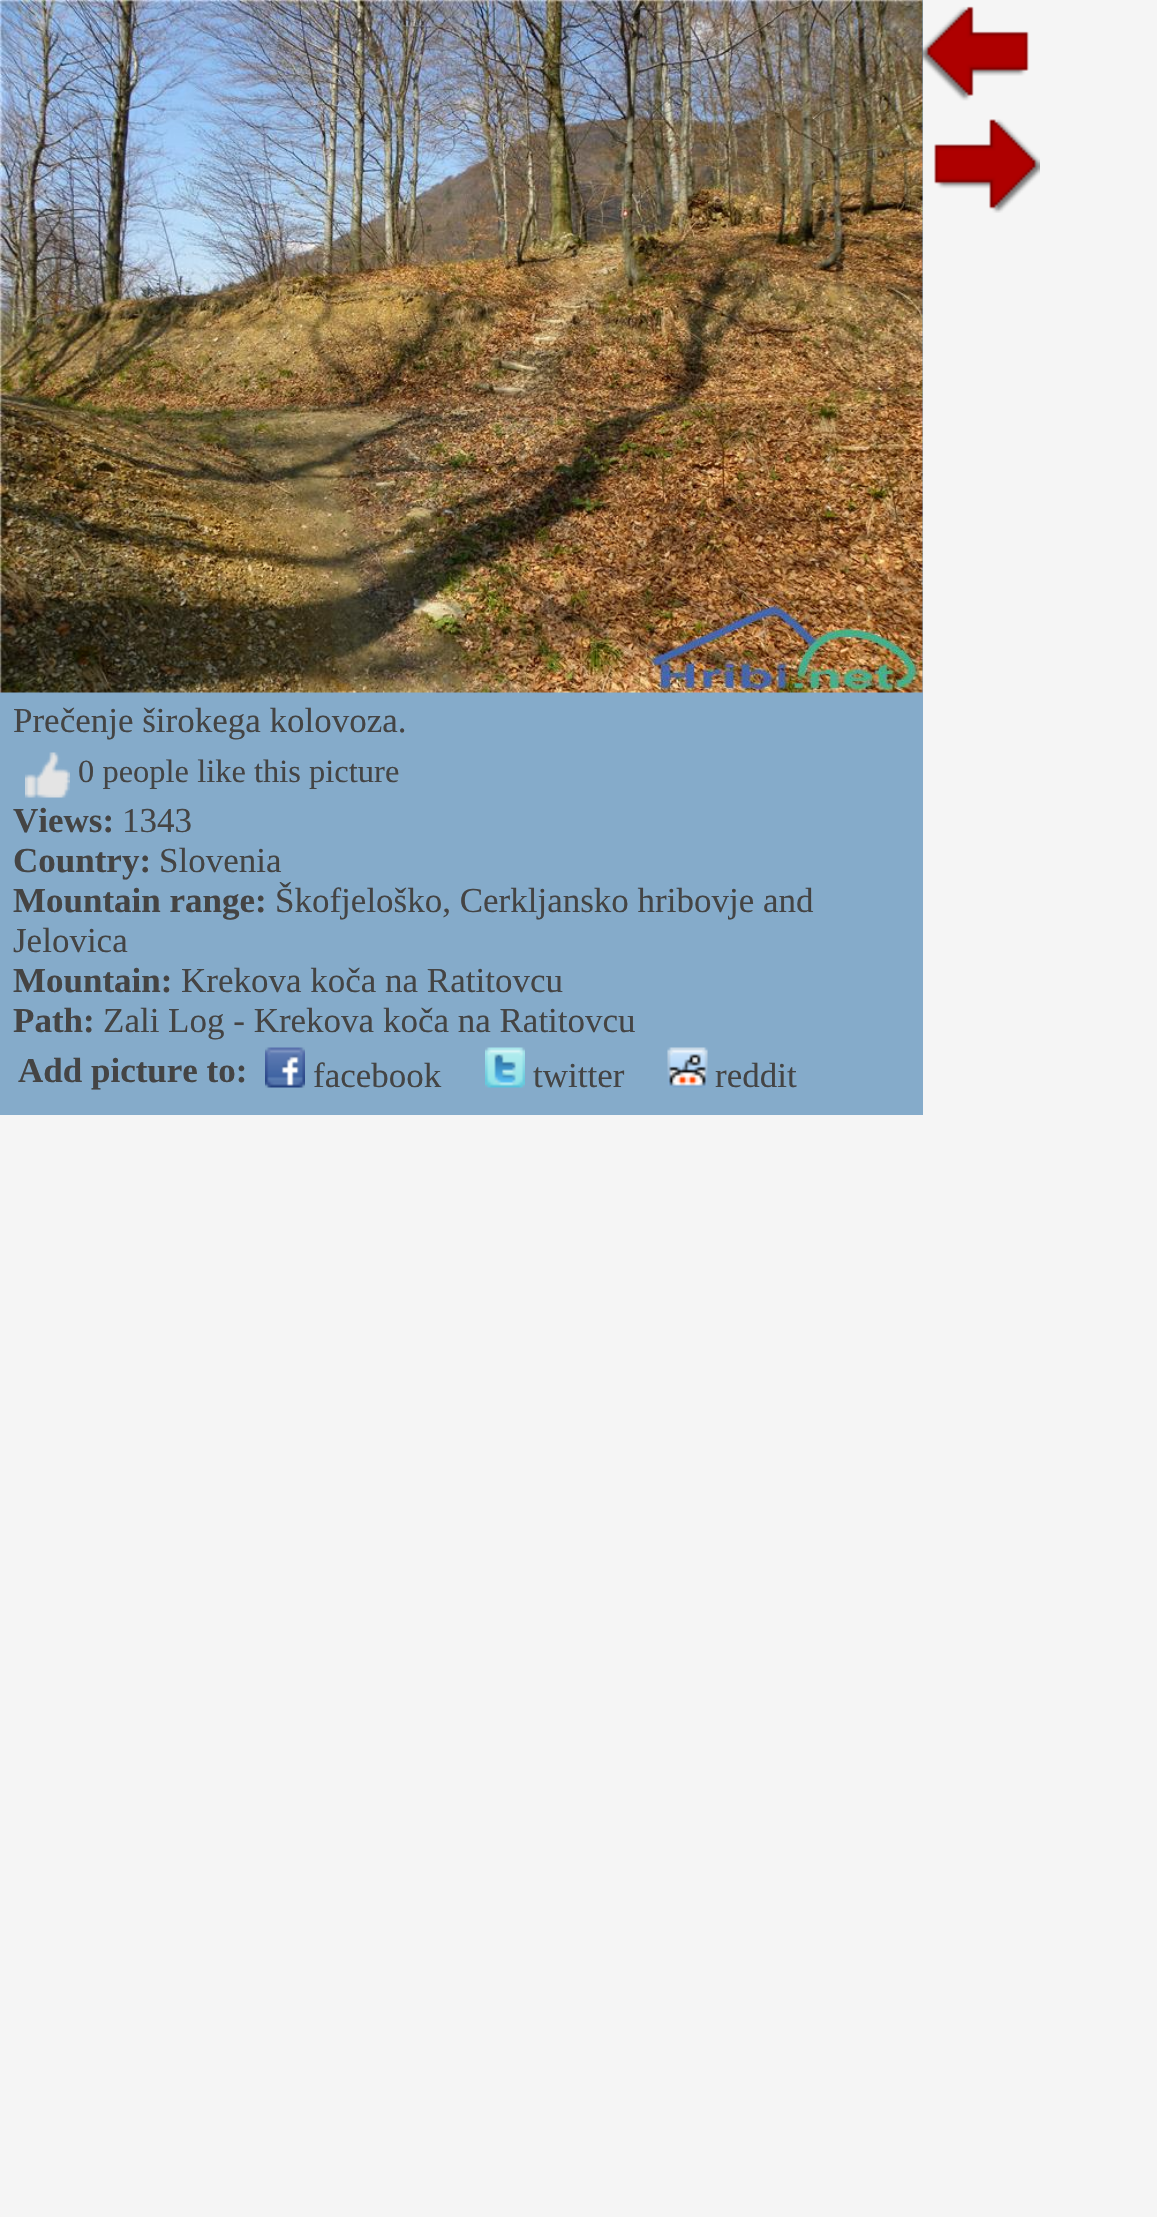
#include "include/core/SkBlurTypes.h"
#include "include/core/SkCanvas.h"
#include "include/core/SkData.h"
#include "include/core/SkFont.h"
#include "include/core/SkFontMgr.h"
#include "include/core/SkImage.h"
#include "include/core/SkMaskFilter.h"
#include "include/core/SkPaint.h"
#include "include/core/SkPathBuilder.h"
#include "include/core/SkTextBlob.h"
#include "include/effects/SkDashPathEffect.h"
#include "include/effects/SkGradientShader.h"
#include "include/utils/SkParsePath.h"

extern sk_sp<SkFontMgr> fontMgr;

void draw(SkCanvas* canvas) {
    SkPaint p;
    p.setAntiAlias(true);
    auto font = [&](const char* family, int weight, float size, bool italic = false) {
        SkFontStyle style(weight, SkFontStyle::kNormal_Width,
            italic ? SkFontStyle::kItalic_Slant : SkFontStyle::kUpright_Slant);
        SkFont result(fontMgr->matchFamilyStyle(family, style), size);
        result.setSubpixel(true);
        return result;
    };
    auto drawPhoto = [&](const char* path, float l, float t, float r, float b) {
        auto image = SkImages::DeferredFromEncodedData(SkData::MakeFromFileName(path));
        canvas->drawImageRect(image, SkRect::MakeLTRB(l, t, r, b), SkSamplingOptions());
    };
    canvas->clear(0xFFF5F5F5);
    p.setColor(0xFF85ABCA);
    canvas->drawRect(SkRect::MakeLTRB(0, 0, 923, 1115), p);
    drawPhoto("media/3.png", 0, 0, 923, 693);
    drawPhoto("media/1.png", 922, 6, 1029, 101);
    drawPhoto("media/2.png", 934, 119, 1040, 213);
    auto font1 = font("Liberation Serif", 400, 35);
    p.setColor(0xFF444444);
    canvas->drawString("Prečenje širokega kolovoza.", 13, 732, font1, p);
    drawPhoto("media/4.png", 25, 752, 70, 798);
    auto font2 = font("Liberation Serif", 400, 32.5f);
    canvas->drawString("0 people like this picture", 78, 782, font2, p);
    auto font3 = font("Liberation Serif", 700, 35);
    canvas->drawString("Views:", 13, 832, font3, p);
    canvas->drawString("1343", 122, 832, font1, p);
    canvas->drawString("Country:", 13, 872, font3, p);
    canvas->drawString("Slovenia", 159, 872, font1, p);
    canvas->drawString("Mountain range:", 13, 912, font3, p);
    canvas->drawString("Škofjeloško, Cerkljansko hribovje and", 275, 912, font1, p);
    canvas->drawString("Jelovica", 13, 952, font1, p);
    canvas->drawString("Mountain:", 13, 992, font3, p);
    canvas->drawString("Krekova koča na Ratitovcu", 181, 992, font1, p);
    canvas->drawString("Path:", 13, 1032, font3, p);
    canvas->drawString("Zali Log - Krekova koča na Ratitovcu", 103, 1032, font1, p);
    canvas->drawString("Add picture to:", 18, 1082, font3, p);
    drawPhoto("media/5.png", 265, 1047, 305, 1088);
    canvas->drawString("facebook", 313, 1087, font1, p);
    drawPhoto("media/6.png", 485, 1047, 525, 1088);
    canvas->drawString("twitter", 533, 1087, font1, p);
    drawPhoto("media/7.png", 667, 1047, 708, 1088);
    canvas->drawString("reddit", 715, 1087, font1, p);
}
